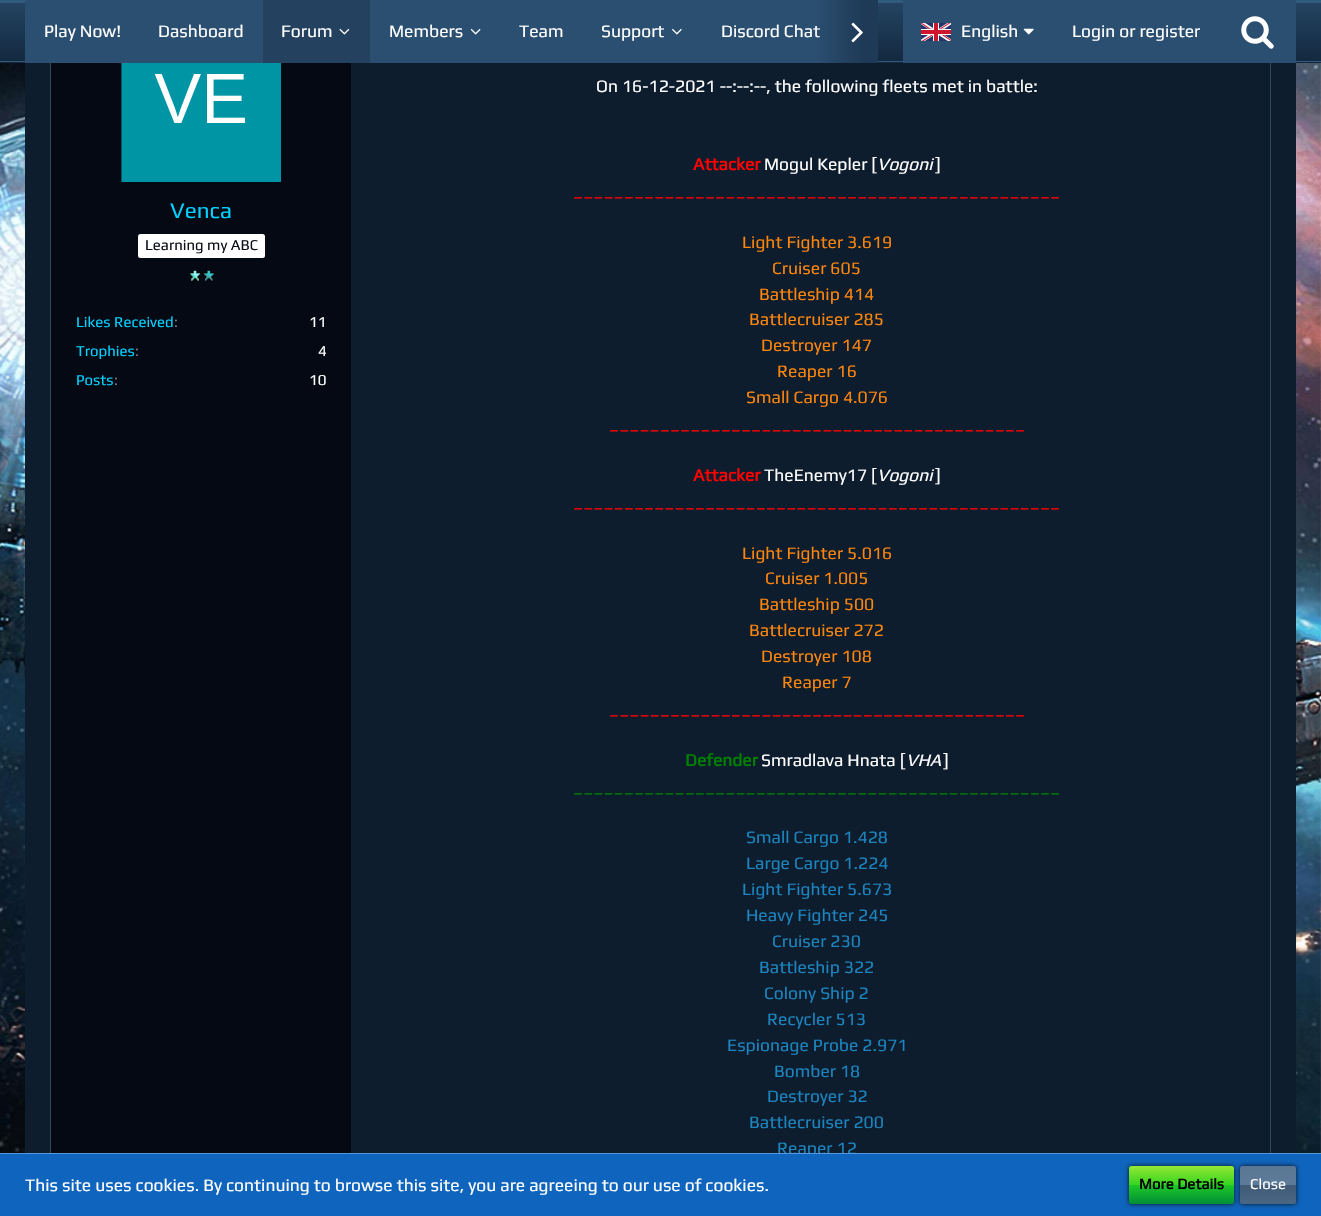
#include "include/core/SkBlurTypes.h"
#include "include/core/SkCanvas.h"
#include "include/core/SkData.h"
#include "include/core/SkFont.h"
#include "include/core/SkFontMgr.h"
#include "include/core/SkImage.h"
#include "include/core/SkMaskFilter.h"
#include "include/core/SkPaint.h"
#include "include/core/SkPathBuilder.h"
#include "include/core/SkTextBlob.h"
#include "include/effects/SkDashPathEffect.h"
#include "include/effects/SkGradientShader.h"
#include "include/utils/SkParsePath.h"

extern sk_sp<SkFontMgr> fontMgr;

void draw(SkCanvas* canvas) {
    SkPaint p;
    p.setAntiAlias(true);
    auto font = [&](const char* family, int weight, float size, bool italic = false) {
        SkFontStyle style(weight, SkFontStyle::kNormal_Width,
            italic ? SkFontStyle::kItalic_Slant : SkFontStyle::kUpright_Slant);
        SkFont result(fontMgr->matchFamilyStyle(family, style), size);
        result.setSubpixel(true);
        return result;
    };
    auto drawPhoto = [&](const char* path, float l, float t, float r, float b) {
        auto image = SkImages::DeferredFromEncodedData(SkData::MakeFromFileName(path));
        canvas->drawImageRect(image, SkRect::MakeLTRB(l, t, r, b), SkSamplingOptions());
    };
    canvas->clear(0xFFFFFFFF);
    drawPhoto("media/1.png", 0, 63, 1321, 1153);
    p.setColor(0xFF0D1D2E);
    canvas->drawRect(SkRect::MakeLTRB(25, 63, 1296, 1153), p);
    p.setStyle(SkPaint::kStroke_Style);
    p.setStrokeWidth(1);
    p.setColor(0xFF334859);
    canvas->drawRect(SkRect::MakeLTRB(50.5f, -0.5f, 1270.5f, 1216.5f), p);
    p.setStyle(SkPaint::kFill_Style);
    {
        const SkColor colors[] = {0xFF13283E, 0xFF244563};
        const float stops[] = {0, 1};
        const SkPoint ends[] = {{661, 63}, {661, 0}};
        p.setShader(SkGradientShader::MakeLinear(ends, colors, stops, 2, SkTileMode::kClamp));
        p.setAlpha(255);
    }
    canvas->drawRect(SkRect::MakeLTRB(0, 3, 1321, 63), p);
    p.setShader(nullptr);
    {
        const struct { float l, t, r, b; SkColor color; } items[] = {
            {0, 61, 1321, 62, 0xFF315B7D},
            {0, 0, 1321, 3, 0xFF315B7D},
            {25, 0, 263, 63, 0xFF2B4F71},
        };
        for (auto [l, t, r, b, color] : items) {
            p.setColor(color);
            canvas->drawRect(SkRect::MakeLTRB(l, t, r, b), p);
        }
    }
    auto font1 = font("Play", 400, 17.5f);
    p.setColor(0xFFFFFFFF);
    canvas->drawString("Play Now!", 44, 37, font1, p);
    canvas->drawString("Dashboard", 158, 37, font1, p);
    p.setColor(0xFF24425F);
    canvas->drawRect(SkRect::MakeLTRB(263, 0, 370, 63), p);
    p.setColor(0xFFFFFFFF);
    canvas->drawString("Forum", 281, 37, font1, p);
    drawPhoto("media/2.png", 339, 28, 350, 35);
    p.setColor(0xFF2B4F71);
    canvas->drawRect(SkRect::MakeLTRB(370, 0, 862, 63), p);
    p.setColor(0xFFFFFFFF);
    canvas->drawString("Members", 389, 37, font1, p);
    drawPhoto("media/3.png", 470, 28, 481, 35);
    canvas->drawString("Team", 519, 37, font1, p);
    canvas->drawString("Support", 601, 37, font1, p);
    drawPhoto("media/4.png", 672, 28, 682, 35);
    canvas->drawString("Discord Chat", 721, 37, font1, p);
    {
        const SkColor colors[] = {0x001E3A56, 0xFF1E3A56};
        const float stops[] = {0, 0.75f};
        const SkPoint ends[] = {{815, 31}, {878, 31}};
        p.setShader(SkGradientShader::MakeLinear(ends, colors, stops, 2, SkTileMode::kClamp));
        p.setAlpha(255);
    }
    canvas->drawRect(SkRect::MakeLTRB(816, 0, 878, 63), p);
    drawPhoto("media/5.png", 851, 22, 863, 43);
    p.setShader(nullptr);
    p.setColor(0xFF2B4F71);
    canvas->drawRect(SkRect::MakeLTRB(903, 0, 1296, 63), p);
    drawPhoto("media/6.png", 921, 23, 951, 41);
    p.setColor(0xFFFFFFFF);
    canvas->drawString("English", 961, 37, font1, p);
    drawPhoto("media/7.png", 1023, 28, 1034, 35);
    canvas->drawString("Login or register", 1072, 37, font1, p);
    drawPhoto("media/8.png", 1241, 16, 1274, 49);
    p.setColor(0xFF050914);
    canvas->drawRect(SkRect::MakeLTRB(51, 63, 351, 1153), p);
    drawPhoto("media/9.png", 121, 63, 281, 182);
    auto font2 = font("Play", 400, 22.5f);
    p.setColor(0xFF00D1FF);
    canvas->drawString("Venca", 170, 218, font2, p);
    p.setColor(0xFFFFFFFF);
    canvas->drawRoundRect(SkRect::MakeLTRB(138, 234, 265, 258), 2.5f, 2.5f, p);
    auto font3 = font("Play", 400, 15);
    p.setColor(0xFF0D111C);
    canvas->drawString("Learning my ABC", 145, 250, font3, p);
    drawPhoto("media/10.png", 188, 269, 215, 282);
    p.setColor(0xFF00D1FF);
    canvas->drawString("Likes Received", 76, 327, font3, p);
    p.setColor(0xFF7D8287);
    canvas->drawString(":", 174, 327, font3, p);
    p.setColor(0xFFFFFFFF);
    canvas->drawString("11", 309, 327, font3, p);
    p.setColor(0xFF00D1FF);
    canvas->drawString("Trophies", 76, 356, font3, p);
    p.setColor(0xFF7D8287);
    canvas->drawString(":", 135, 356, font3, p);
    p.setColor(0xFFFFFFFF);
    canvas->drawString("4", 318, 356, font3, p);
    p.setColor(0xFF00D1FF);
    canvas->drawString("Posts", 76, 385, font3, p);
    p.setColor(0xFF7D8287);
    canvas->drawString(":", 114, 385, font3, p);
    p.setColor(0xFFFFFFFF);
    canvas->drawString("10", 309, 385, font3, p);
    canvas->drawString("On 16-12-2021 --:--:--, the following fleets met in battle:", 596, 92, font1, p);
    auto font4 = font("Play", 700, 17.5f);
    p.setColor(0xFFFF0000);
    canvas->drawString("Attacker", 693, 170, font4, p);
    p.setColor(0xFFFFFFFF);
    canvas->drawString("Mogul Kepler [", 764, 170, font1, p);
    auto font5 = font("Play", 400, 17.5f, true);
    canvas->drawString("Vogoni", 877, 170, font5, p);
    canvas->drawString("]", 935, 170, font1, p);
    p.setColor(0xFFFF0000);
    canvas->drawString("________________________________________________", 573, 196, font1, p);
    p.setColor(0xFFFC850C);
    {
        const struct { const char* s; float x, y; } items[] = {
            {"Light Fighter 3.619", 742, 248},
            {"Cruiser 605", 772, 274},
            {"Battleship 414", 759, 300},
            {"Battlecruiser 285", 749, 325},
            {"Destroyer 147", 761, 351},
            {"Reaper 16", 777, 377},
            {"Small Cargo 4.076", 746, 403},
        };
        for (auto [s, x, y] : items) {
            canvas->drawString(s, x, y, font1, p);
        }
    }
    p.setColor(0xFFFF0000);
    canvas->drawString("_________________________________________", 609, 429, font1, p);
    canvas->drawString("Attacker", 693, 481, font4, p);
    p.setColor(0xFFFFFFFF);
    canvas->drawString("TheEnemy17 [", 764, 481, font1, p);
    canvas->drawString("Vogoni", 877, 481, font5, p);
    canvas->drawString("]", 935, 481, font1, p);
    p.setColor(0xFFFF0000);
    canvas->drawString("________________________________________________", 573, 507, font1, p);
    p.setColor(0xFFFC850C);
    {
        const struct { const char* s; float x, y; } items[] = {
            {"Light Fighter 5.016", 742, 559},
            {"Cruiser 1.005", 765, 584},
            {"Battleship 500", 759, 610},
            {"Battlecruiser 272", 749, 636},
            {"Destroyer 108", 761, 662},
            {"Reaper 7", 782, 688},
        };
        for (auto [s, x, y] : items) {
            canvas->drawString(s, x, y, font1, p);
        }
    }
    p.setColor(0xFFFF0000);
    canvas->drawString("_________________________________________", 609, 714, font1, p);
    p.setColor(0xFF008000);
    canvas->drawString("Defender", 685, 766, font4, p);
    p.setColor(0xFFFFFFFF);
    canvas->drawString("Smradlava Hnata [", 761, 766, font1, p);
    canvas->drawString("VHA", 906, 766, font5, p);
    canvas->drawString("]", 943, 766, font1, p);
    p.setColor(0xFF008000);
    canvas->drawString("________________________________________________", 573, 792, font1, p);
    p.setColor(0xFF1C84BE);
    {
        const struct { const char* s; float x, y; } items[] = {
            {"Small Cargo 1.428", 746, 843},
            {"Large Cargo 1.224", 746, 869},
            {"Light Fighter 5.673", 742, 895},
            {"Heavy Fighter 245", 746, 921},
            {"Cruiser 230", 772, 947},
            {"Battleship 322", 759, 973},
            {"Colony Ship 2", 764, 999},
            {"Recycler 513", 767, 1025},
            {"Espionage Probe 2.971", 727, 1051},
            {"Bomber 18", 774, 1077},
            {"Destroyer 32", 767, 1102},
            {"Battlecruiser 200", 749, 1128},
            {"Reaper 12", 777, 1154},
        };
        for (auto [s, x, y] : items) {
            canvas->drawString(s, x, y, font1, p);
        }
    }
    p.setColor(0xFF0F64BD);
    canvas->drawRect(SkRect::MakeLTRB(0, 1154, 1321, 1216), p);
    p.setColor(0xFF5498DE);
    canvas->drawRect(SkRect::MakeLTRB(0, 1153, 1321, 1154), p);
    p.setColor(0xFFFFFFFF);
    canvas->drawString("This site uses cookies. By continuing to browse this site, you are agreeing to our use of cookies.", 25, 1191, font1, p);
    p.setColor(0xFF08111C);
    p.setMaskFilter(SkMaskFilter::MakeBlur(kNormal_SkBlurStyle, 2.5f));
    canvas->drawRoundRect(SkRect::MakeLTRB(1129, 1166, 1234, 1204), 2.5f, 2.5f, p);
    p.setMaskFilter(nullptr);
    {
        const SkColor colors[] = {0xFF94E733, 0xFF36D521, 0xFF1EC725, 0xFF008E3A};
        const float stops[] = {0, 0.5f, 0.51f, 1};
        const SkPoint ends[] = {{1181, 1166}, {1181, 1204}};
        p.setShader(SkGradientShader::MakeLinear(ends, colors, stops, 4, SkTileMode::kClamp));
        p.setAlpha(255);
    }
    canvas->drawRoundRect(SkRect::MakeLTRB(1129, 1166, 1234, 1204), 2.5f, 2.5f, p);
    auto font6 = font("Play", 700, 15);
    p.setShader(nullptr);
    p.setColor(0xFF000000);
    canvas->drawString("More Details", 1139, 1189, font6, p);
    p.setColor(0xFF08111C);
    p.setMaskFilter(SkMaskFilter::MakeBlur(kNormal_SkBlurStyle, 2.5f));
    canvas->drawRoundRect(SkRect::MakeLTRB(1240, 1166, 1296, 1204), 2.5f, 2.5f, p);
    p.setMaskFilter(nullptr);
    {
        const SkColor colors[] = {0xFF4A6682, 0xFF415B77, 0xFF5D7C9B, 0xFF5B7693};
        const float stops[] = {0, 0.49f, 0.5f, 1};
        const SkPoint ends[] = {{1268, 1204}, {1268, 1166}};
        p.setShader(SkGradientShader::MakeLinear(ends, colors, stops, 4, SkTileMode::kClamp));
        p.setAlpha(255);
    }
    canvas->drawRoundRect(SkRect::MakeLTRB(1240, 1166, 1296, 1204), 2.5f, 2.5f, p);
    p.setShader(nullptr);
    p.setColor(0xFFFFFFFF);
    canvas->drawString("Close", 1250, 1189, font3, p);
}
